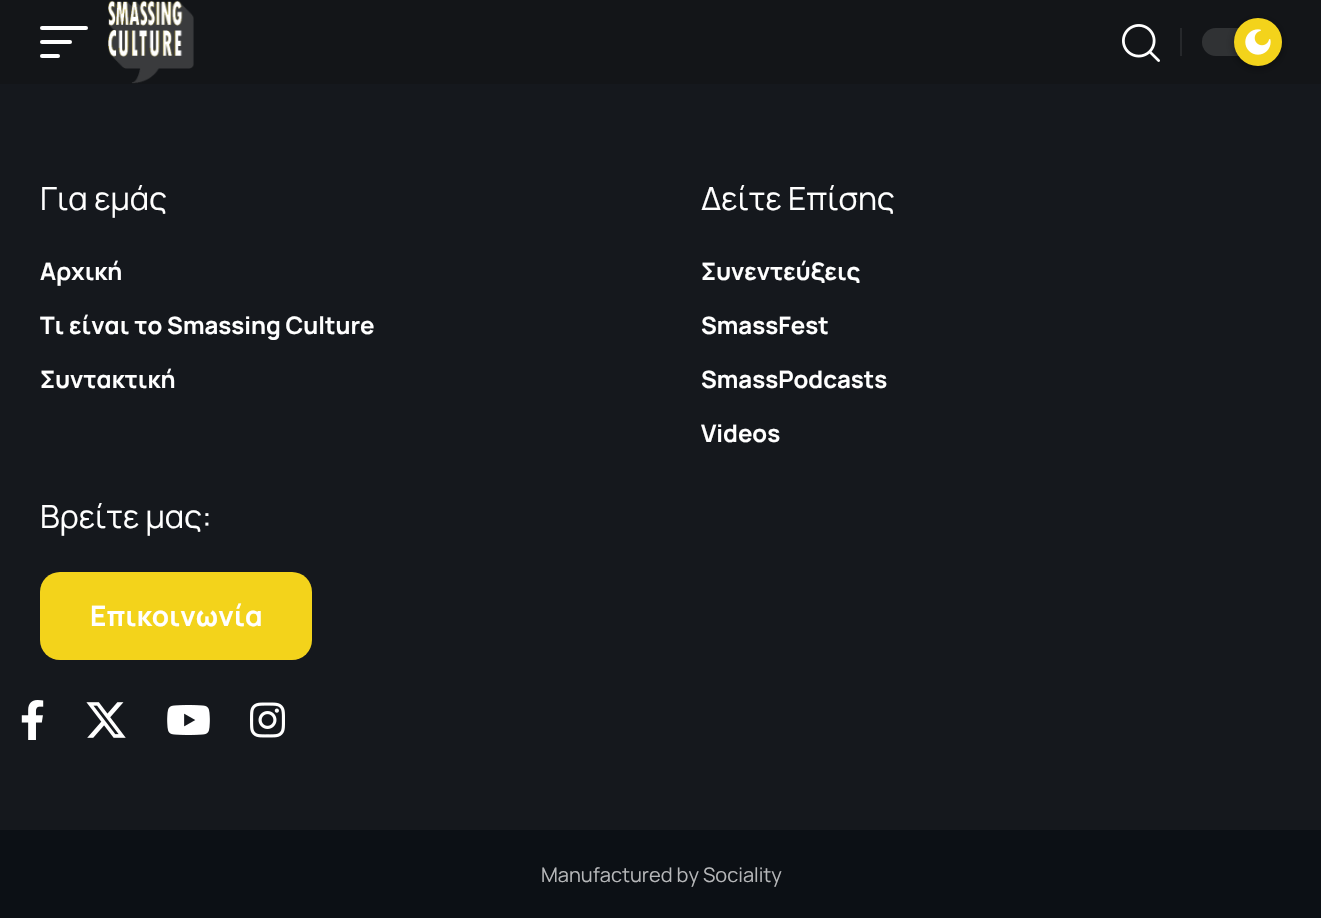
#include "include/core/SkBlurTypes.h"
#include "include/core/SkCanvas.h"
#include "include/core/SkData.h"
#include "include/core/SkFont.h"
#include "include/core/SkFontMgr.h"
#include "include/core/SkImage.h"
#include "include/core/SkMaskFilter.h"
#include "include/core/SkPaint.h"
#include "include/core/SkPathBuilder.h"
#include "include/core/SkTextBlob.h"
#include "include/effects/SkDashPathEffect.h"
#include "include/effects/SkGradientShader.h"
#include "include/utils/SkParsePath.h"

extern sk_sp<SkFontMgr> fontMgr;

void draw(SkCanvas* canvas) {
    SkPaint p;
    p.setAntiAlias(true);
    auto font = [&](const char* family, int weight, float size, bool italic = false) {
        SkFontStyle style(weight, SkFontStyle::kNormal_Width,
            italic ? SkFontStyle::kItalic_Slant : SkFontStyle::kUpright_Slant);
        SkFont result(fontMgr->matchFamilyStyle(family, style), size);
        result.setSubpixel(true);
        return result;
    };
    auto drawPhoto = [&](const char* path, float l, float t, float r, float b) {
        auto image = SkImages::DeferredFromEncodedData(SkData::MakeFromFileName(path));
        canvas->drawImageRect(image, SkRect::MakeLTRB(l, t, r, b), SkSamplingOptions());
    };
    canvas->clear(0xFF0C1015);
    p.setColor(0xFF131518);
    canvas->drawRect(SkRect::MakeLTRB(0, 0, 1321, 84), p);
    p.setColor(0xFFFFFFFF);
    canvas->drawRoundRect(SkRect::MakeLTRB(40, 26, 88, 30), 2, 2, p);
    canvas->drawRoundRect(SkRect::MakeLTRB(40, 40, 72, 44), 2, 2, p);
    canvas->drawRoundRect(SkRect::MakeLTRB(40, 54, 60, 58), 2, 2, p);
    drawPhoto("media/1.png", 108, 0, 194, 84);
    drawPhoto("media/2.png", 1122, 24, 1160, 62);
    p.setColor(0xFF26282B);
    canvas->drawRect(SkRect::MakeLTRB(1180, 28, 1182, 56), p);
    p.setColor(0xFF303234);
    canvas->drawRoundRect(SkRect::MakeLTRB(1202, 28, 1282, 56), 14, 14, p);
    p.setColor(0x66000000);
    p.setMaskFilter(SkMaskFilter::MakeBlur(kNormal_SkBlurStyle, 4));
    canvas->drawRoundRect(SkRect::MakeLTRB(1234, 20, 1282, 68), 24, 24, p);
    p.setMaskFilter(nullptr);
    p.setColor(0xFFF3D31B);
    canvas->drawCircle(1258, 42, 24, p);
    drawPhoto("media/3.png", 1245, 29, 1271, 55);
    p.setColor(0xFF15181D);
    canvas->drawRect(SkRect::MakeLTRB(0, 84, 1321, 830), p);
    auto font1 = font("Manrope", 400, 32);
    p.setColor(0xFFFFFFFF);
    canvas->drawString("Για εμάς", 40, 210, font1, p);
    auto font2 = font("Manrope", 700, 24);
    {
        const struct { const char* s; float x, y; } items[] = {
            {"Αρχική", 40, 280},
            {"Τι είναι το Smassing Culture", 40, 334},
            {"Συντακτική", 40, 388},
        };
        for (auto [s, x, y] : items) {
            canvas->drawString(s, x, y, font2, p);
        }
    }
    canvas->drawString("Δείτε Επίσης", 701, 210, font1, p);
    {
        const struct { const char* s; float x, y; } items[] = {
            {"Συνεντεύξεις", 701, 280},
            {"SmassFest", 701, 334},
            {"SmassPodcasts", 701, 388},
            {"Videos", 701, 442},
        };
        for (auto [s, x, y] : items) {
            canvas->drawString(s, x, y, font2, p);
        }
    }
    canvas->drawString("Βρείτε μας:", 40, 528, font1, p);
    p.setColor(0xFFF3D31B);
    canvas->drawRoundRect(SkRect::MakeLTRB(40, 572, 312, 660), 20, 20, p);
    auto font3 = font("Manrope", 700, 28);
    p.setColor(0xFFFFFFFF);
    canvas->drawString("Επικοινωνία", 90, 626, font3, p);
    drawPhoto("media/4.png", 21, 700, 44, 740);
    drawPhoto("media/5.png", 86, 702, 126, 738);
    drawPhoto("media/6.png", 167, 705, 210, 735);
    drawPhoto("media/7.png", 250, 702, 285, 738);
    auto font4 = font("Manrope", 400, 20);
    p.setColor(0xFFB6B7B9);
    canvas->drawString("Manufactured by Sociality", 541, 882, font4, p);
}
